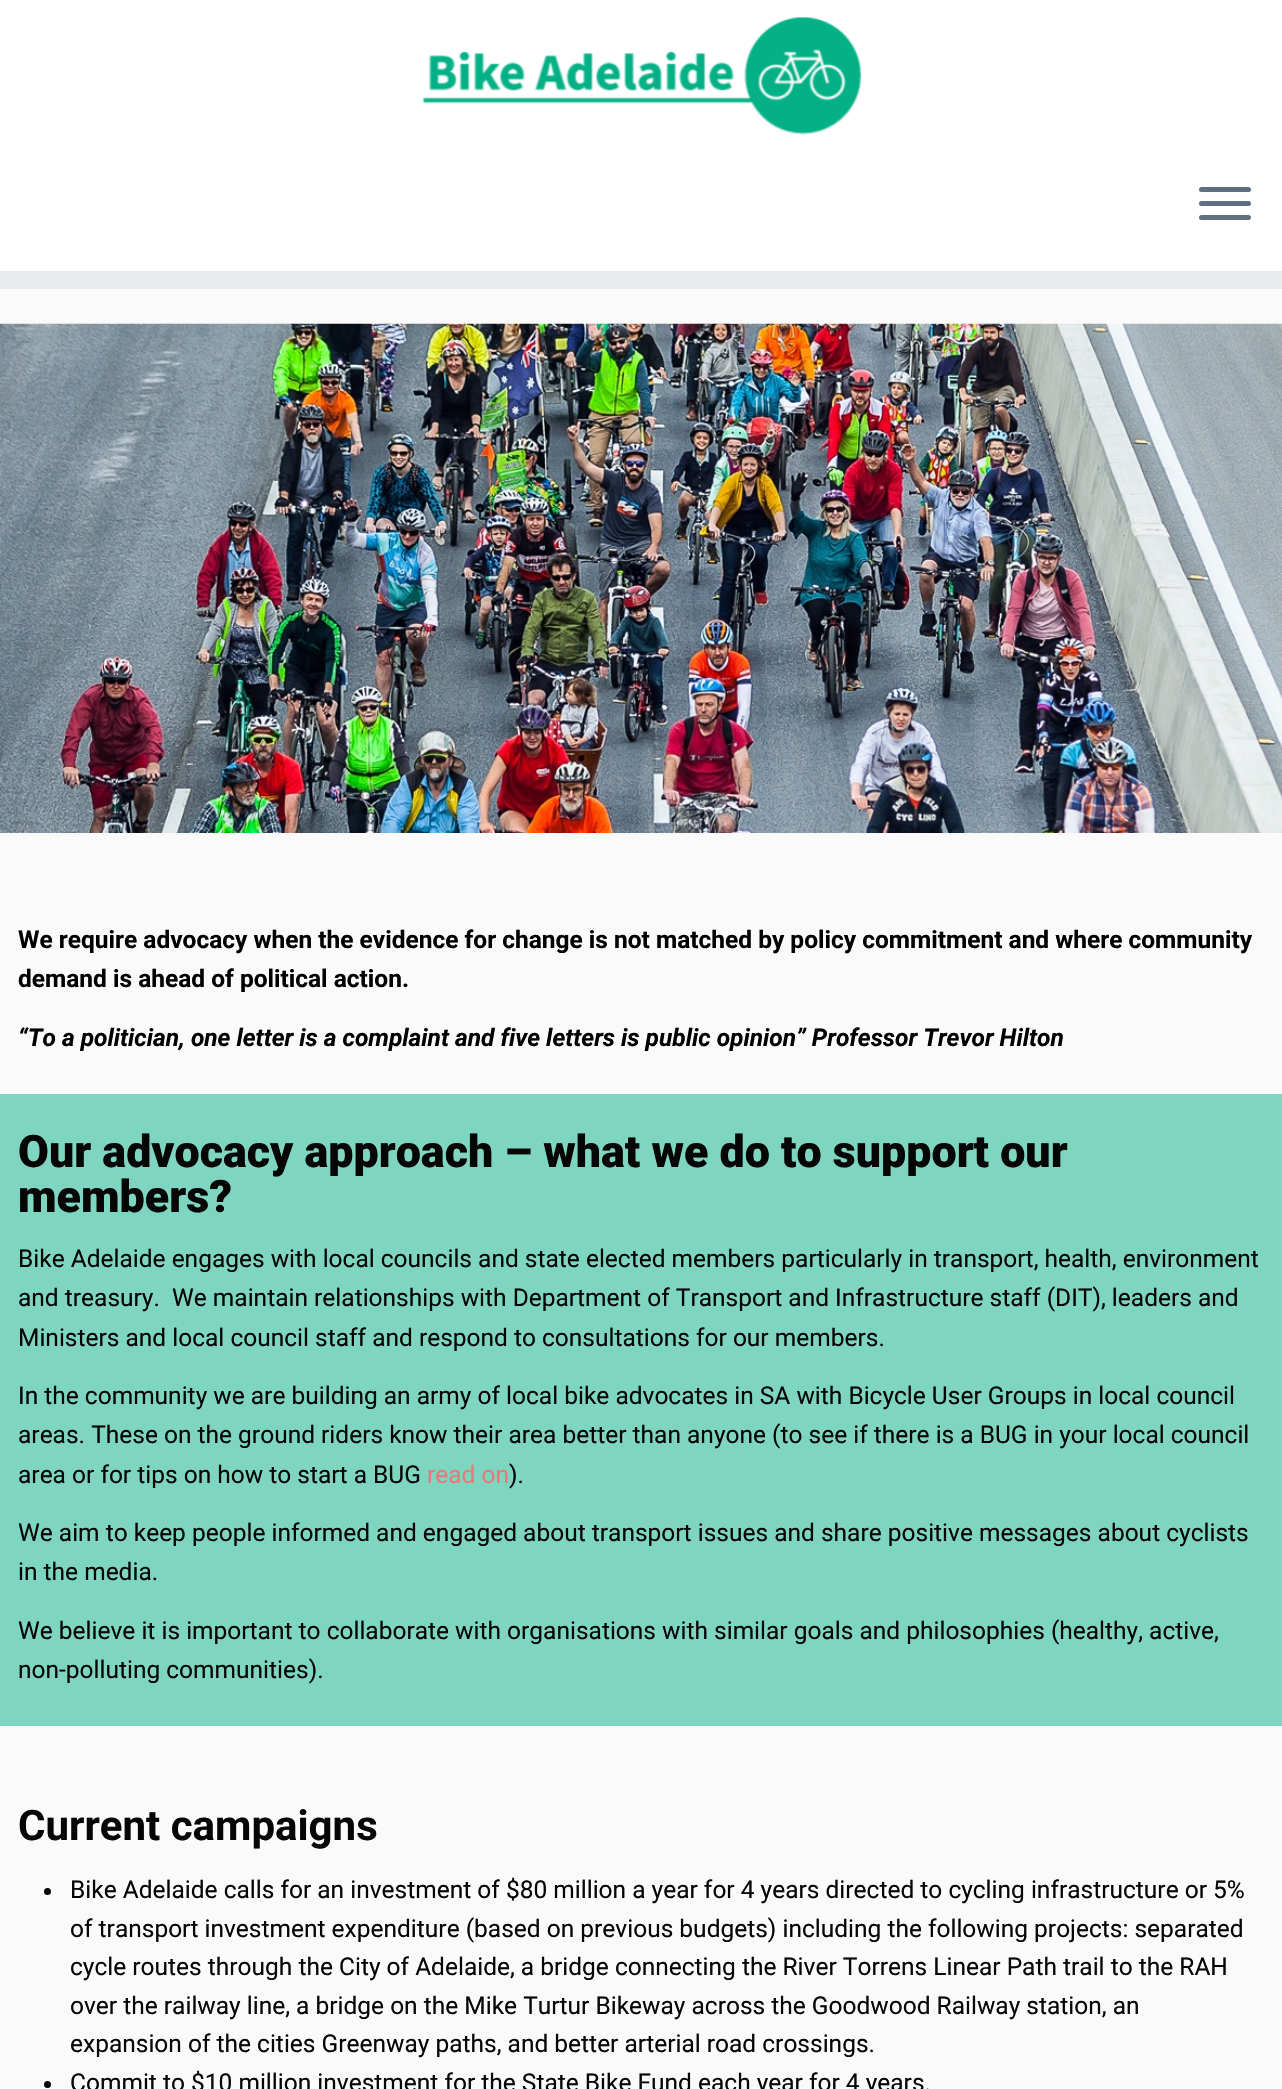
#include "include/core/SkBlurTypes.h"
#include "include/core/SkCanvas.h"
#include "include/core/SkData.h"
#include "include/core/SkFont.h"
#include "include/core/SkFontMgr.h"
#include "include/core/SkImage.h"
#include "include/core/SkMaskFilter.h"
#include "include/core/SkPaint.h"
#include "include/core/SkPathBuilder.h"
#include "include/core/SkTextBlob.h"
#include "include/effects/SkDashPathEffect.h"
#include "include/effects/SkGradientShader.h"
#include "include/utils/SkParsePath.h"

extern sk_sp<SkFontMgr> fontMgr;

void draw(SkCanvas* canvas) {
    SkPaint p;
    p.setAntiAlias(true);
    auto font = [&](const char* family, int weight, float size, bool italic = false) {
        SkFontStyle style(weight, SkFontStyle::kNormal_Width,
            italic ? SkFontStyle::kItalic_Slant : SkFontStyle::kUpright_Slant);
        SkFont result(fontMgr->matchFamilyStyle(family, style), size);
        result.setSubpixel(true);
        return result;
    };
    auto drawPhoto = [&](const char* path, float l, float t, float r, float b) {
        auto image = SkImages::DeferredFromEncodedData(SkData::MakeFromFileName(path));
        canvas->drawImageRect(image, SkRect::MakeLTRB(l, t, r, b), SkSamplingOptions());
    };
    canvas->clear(0xFFFAFAFA);
    p.setColor(0xFFFFFFFF);
    canvas->drawRect(SkRect::MakeLTRB(0, 0, 1282, 271), p);
    p.setColor(0xFFE9EAEE);
    canvas->drawRect(SkRect::MakeLTRB(0, 271, 1282, 289), p);
    drawPhoto("media/1.png", 422, 17, 861, 135);
    p.setColor(0xFF5F6F81);
    canvas->drawRoundRect(SkRect::MakeLTRB(1199, 187, 1251, 192), 2.5f, 2.5f, p);
    canvas->drawRoundRect(SkRect::MakeLTRB(1199, 201, 1251, 206), 2.5f, 2.5f, p);
    canvas->drawRoundRect(SkRect::MakeLTRB(1199, 215, 1251, 220), 2.5f, 2.5f, p);
    drawPhoto("media/2.png", 0, 323, 1282, 833);
    auto font1 = font("Roboto", 700, 24.5f);
    p.setColor(0xFF000000);
    canvas->drawString("We require advocacy when the evidence for change is not matched by policy commitment and where community", 18, 948, font1, p);
    canvas->drawString("demand is ahead of political action.", 18, 987, font1, p);
    auto font2 = font("Roboto", 700, 24.5f, true);
    canvas->drawString("“To a politician, one letter is a complaint and five letters is public opinion” Professor Trevor Hilton", 18, 1046, font2, p);
    p.setColor(0xFF7ED5C0);
    canvas->drawRect(SkRect::MakeLTRB(0, 1094, 1282, 1726), p);
    auto font3 = font("Roboto", 900, 44.8f);
    p.setColor(0xFF060606);
    canvas->drawString("Our advocacy approach – what we do to support our", 18, 1167, font3, p);
    canvas->drawString("members?", 18, 1212, font3, p);
    auto font4 = font("Roboto", 400, 24.5f);
    {
        const struct { const char* s; float x, y; } items[] = {
            {"Bike Adelaide engages with local councils and state elected members particularly in transport, health, environment", 18, 1267},
            {"and treasury.  We maintain relationships with Department of Transport and Infrastructure staff (DIT), leaders and", 18, 1306},
            {"Ministers and local council staff and respond to consultations for our members.", 18, 1346},
            {"In the community we are building an army of local bike advocates in SA with Bicycle User Groups in local council", 18, 1404},
            {"areas. These on the ground riders know their area better than anyone (to see if there is a BUG in your local council", 18, 1443},
            {"area or for tips on how to start a BUG", 18, 1483},
        };
        for (auto [s, x, y] : items) {
            canvas->drawString(s, x, y, font4, p);
        }
    }
    p.setColor(0xFFE7797A);
    canvas->drawString("read on", 427, 1483, font4, p);
    p.setColor(0xFF060606);
    {
        const struct { const char* s; float x, y; } items[] = {
            {").", 509, 1483},
            {"We aim to keep people informed and engaged about transport issues and share positive messages about cyclists", 18, 1541},
            {"in the media.", 18, 1580},
            {"We believe it is important to collaborate with organisations with similar goals and philosophies (healthy, active,", 18, 1639},
            {"non-polluting communities).", 18, 1678},
        };
        for (auto [s, x, y] : items) {
            canvas->drawString(s, x, y, font4, p);
        }
    }
    auto font5 = font("Roboto", 700, 42);
    canvas->drawString("Current campaigns", 18, 1840, font5, p);
    canvas->drawCircle(47.5f, 1891.5f, 3.5f, p);
    {
        const struct { const char* s; float x, y; } items[] = {
            {"Bike Adelaide calls for an investment of $80 million a year for 4 years directed to cycling infrastructure or 5%", 70, 1898},
            {"of transport investment expenditure (based on previous budgets) including the following projects: separated", 70, 1937},
            {"cycle routes through the City of Adelaide, a bridge connecting the River Torrens Linear Path trail to the RAH", 70, 1975},
            {"over the railway line, a bridge on the Mike Turtur Bikeway across the Goodwood Railway station, an", 70, 2014},
            {"expansion of the cities Greenway paths, and better arterial road crossings.", 70, 2052},
        };
        for (auto [s, x, y] : items) {
            canvas->drawString(s, x, y, font4, p);
        }
    }
    canvas->drawCircle(47.5f, 2084.5f, 3.5f, p);
    canvas->drawString("Commit to $10 million investment for the State Bike Fund each year for 4 years.", 70, 2091, font4, p);
}
